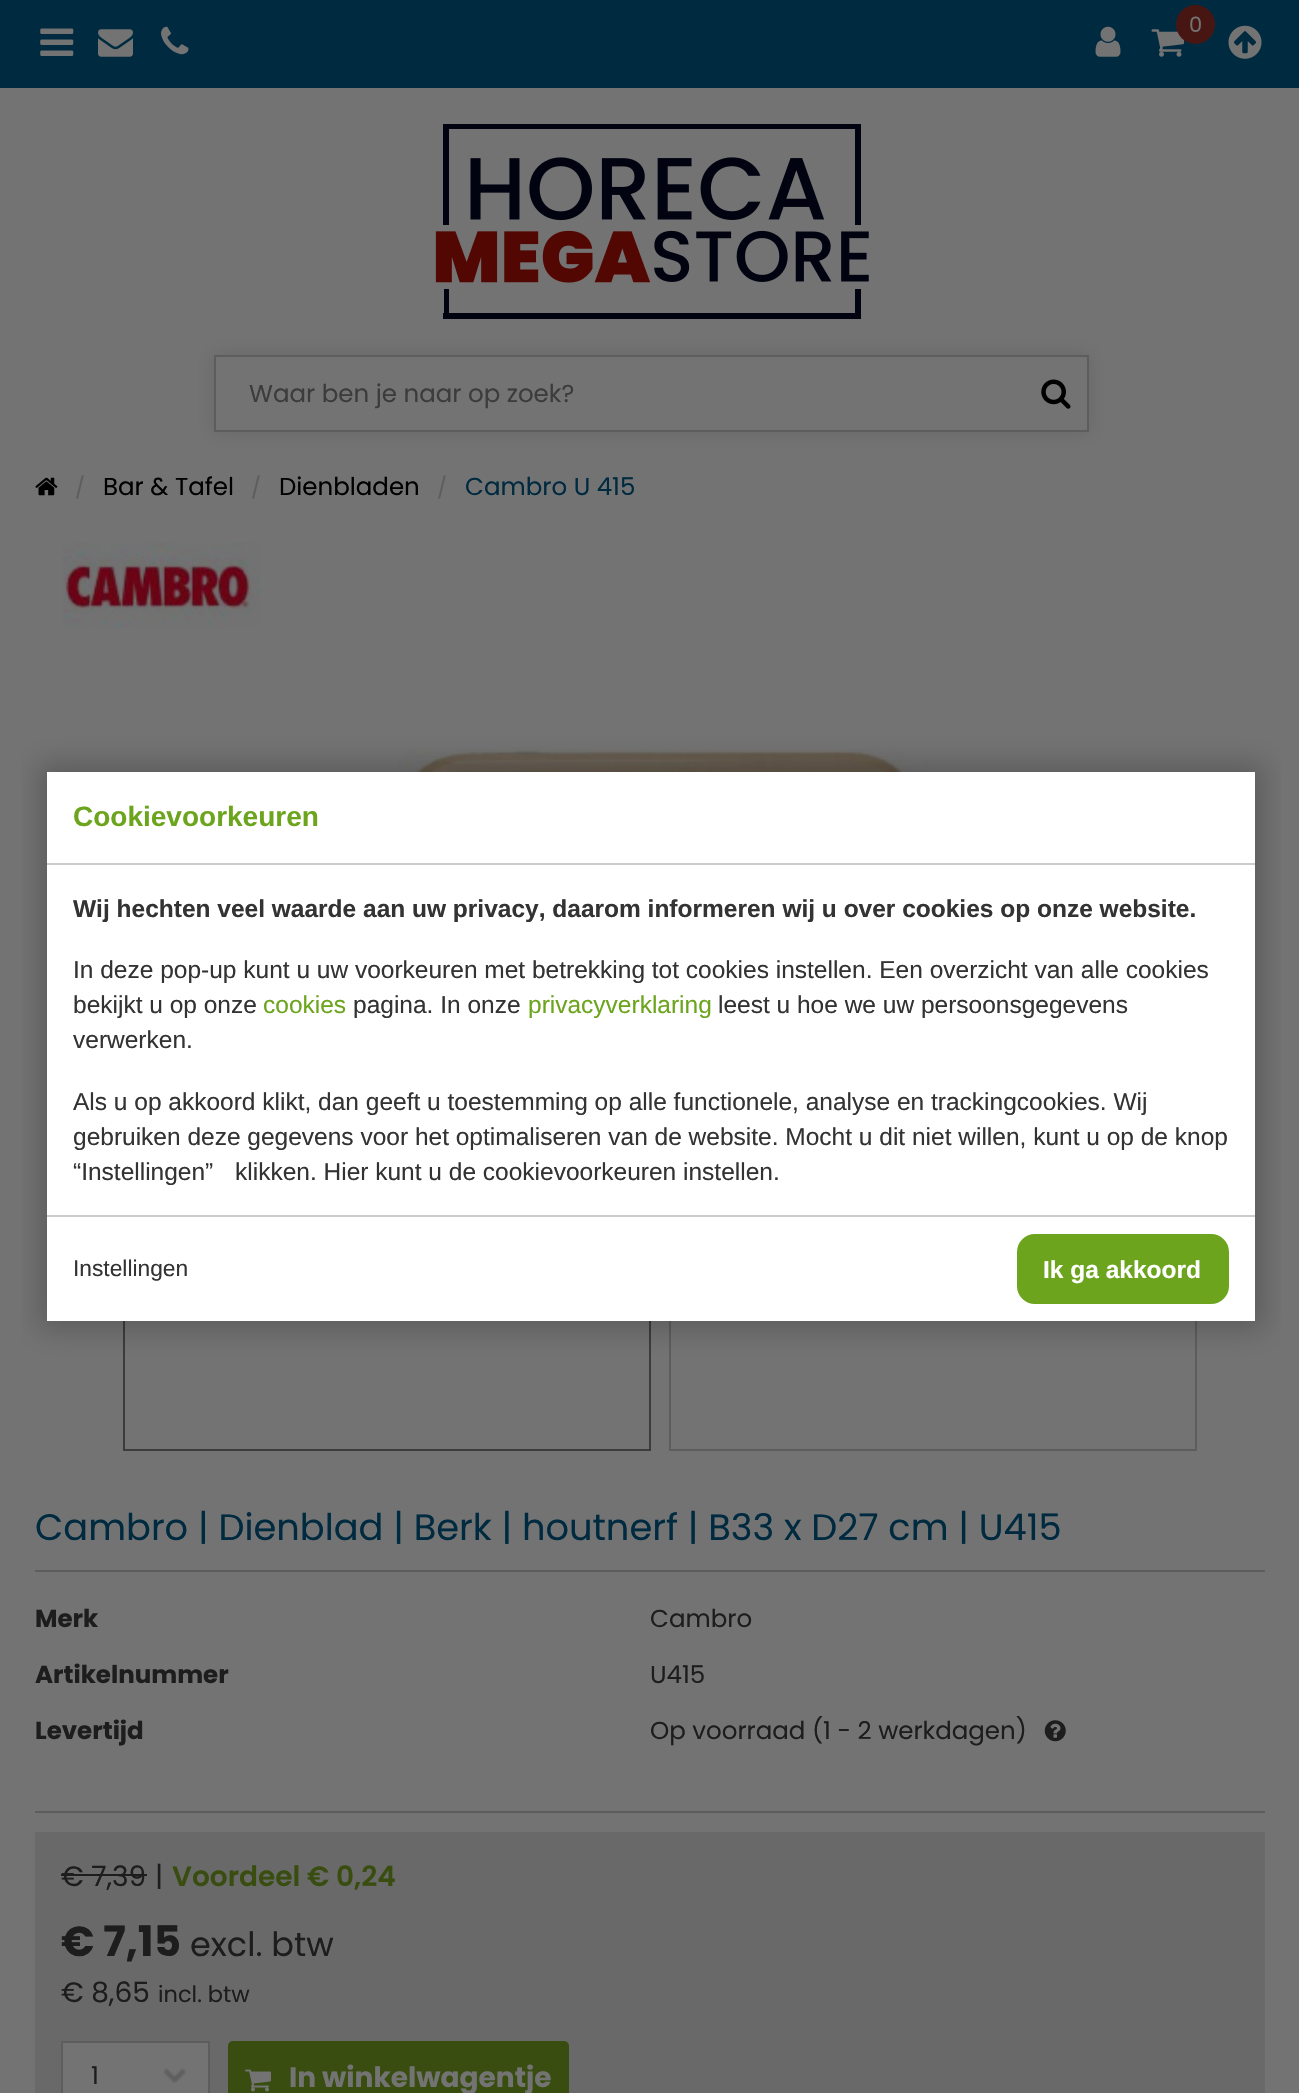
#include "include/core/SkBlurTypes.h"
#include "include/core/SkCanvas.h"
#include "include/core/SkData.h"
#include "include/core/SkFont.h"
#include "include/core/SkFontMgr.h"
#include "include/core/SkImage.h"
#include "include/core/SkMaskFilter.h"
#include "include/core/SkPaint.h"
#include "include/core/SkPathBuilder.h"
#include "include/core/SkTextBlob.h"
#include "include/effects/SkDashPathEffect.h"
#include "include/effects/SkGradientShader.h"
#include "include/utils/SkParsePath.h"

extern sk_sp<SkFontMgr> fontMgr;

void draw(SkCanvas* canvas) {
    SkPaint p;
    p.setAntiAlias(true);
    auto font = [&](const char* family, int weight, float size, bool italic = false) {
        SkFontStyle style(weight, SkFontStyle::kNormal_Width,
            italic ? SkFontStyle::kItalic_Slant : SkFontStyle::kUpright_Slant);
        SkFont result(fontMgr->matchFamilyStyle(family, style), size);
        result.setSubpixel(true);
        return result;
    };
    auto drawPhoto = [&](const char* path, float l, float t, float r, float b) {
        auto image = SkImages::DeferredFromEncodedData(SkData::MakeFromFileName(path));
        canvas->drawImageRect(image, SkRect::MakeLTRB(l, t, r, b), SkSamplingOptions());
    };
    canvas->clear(0xFF737373);
    p.setColor(0xFF002A3F);
    canvas->drawRect(SkRect::MakeLTRB(0, 0, 1299, 88), p);
    drawPhoto("media/1.png", 40, 28, 74, 56);
    drawPhoto("media/2.png", 98, 29, 133, 57);
    drawPhoto("media/3.png", 161, 26, 189, 55);
    drawPhoto("media/4.png", 1095, 26, 1121, 57);
    drawPhoto("media/5.png", 1151, 29, 1184, 57);
    p.setColor(0xFF481612);
    canvas->drawCircle(1195.5f, 24.5f, 19.5f, p);
    auto font1 = font("Poppins", 400, 21);
    p.setColor(0xFF737373);
    canvas->drawString("0", 1189, 32, font1, p);
    drawPhoto("media/6.png", 1228, 25, 1262, 59);
    drawPhoto("media/7.png", 435, 124, 869, 319);
    p.setColor(0x1A000000);
    p.setMaskFilter(SkMaskFilter::MakeBlur(kNormal_SkBlurStyle, 9));
    canvas->drawRect(SkRect::MakeLTRB(214, 355, 1089, 432), p);
    p.setMaskFilter(nullptr);
    p.setColor(0xFF737373);
    canvas->drawRect(SkRect::MakeLTRB(215, 356, 1088, 431), p);
    p.setStyle(SkPaint::kStroke_Style);
    p.setStrokeWidth(2);
    p.setColor(0xFF5D5D5D);
    canvas->drawRect(SkRect::MakeLTRB(215, 356, 1088, 431), p);
    auto font2 = font("Poppins", 400, 24.5f);
    p.setStyle(SkPaint::kFill_Style);
    p.setColor(0xFF3C3C3C);
    canvas->drawString("Waar ben je naar op zoek?", 249, 402, font2, p);
    drawPhoto("media/8.png", 1041, 379, 1071, 409);
    drawPhoto("media/9.png", 35, 477, 58, 496);
    p.setColor(0xFF5D5D5D);
    canvas->drawString("/", 75, 495, font1, p);
    p.setColor(0xFF000000);
    canvas->drawString("Bar & Tafel", 103, 495, font2, p);
    p.setColor(0xFF5D5D5D);
    canvas->drawString("/", 251, 495, font1, p);
    p.setColor(0xFF000000);
    canvas->drawString("Dienbladen", 279, 495, font2, p);
    p.setColor(0xFF5D5D5D);
    canvas->drawString("/", 437, 495, font1, p);
    p.setColor(0xFF002A3F);
    canvas->drawString("Cambro U 415", 465, 495, font2, p);
    drawPhoto("media/10.png", 62, 542, 261, 628);
    drawPhoto("media/11.png", 391, 749, 931, 772);
    p.setStyle(SkPaint::kStroke_Style);
    p.setColor(0xFF3C3C3C);
    canvas->drawRect(SkRect::MakeLTRB(124, 1307, 650, 1450), p);
    p.setColor(0xFF5D5D5D);
    canvas->drawRect(SkRect::MakeLTRB(670, 1307, 1196, 1450), p);
    auto font3 = font("Poppins", 400, 36.75f);
    p.setStyle(SkPaint::kFill_Style);
    p.setColor(0xFF002A3F);
    canvas->drawString("Cambro | Dienblad | Berk | houtnerf | B33 x D27 cm | U415", 35, 1540, font3, p);
    p.setColor(0xFF5D5D5D);
    canvas->drawRect(SkRect::MakeLTRB(35, 1570, 1265, 1572), p);
    auto font4 = font("Poppins", 700, 24.5f);
    p.setColor(0xFF1D1D1D);
    canvas->drawString("Merk", 35, 1627, font4, p);
    canvas->drawString("Cambro", 650, 1627, font2, p);
    canvas->drawString("Artikelnummer", 35, 1683, font4, p);
    canvas->drawString("U415", 650, 1683, font2, p);
    canvas->drawString("Levertijd", 35, 1739, font4, p);
    canvas->drawString("Op voorraad (1 - 2 werkdagen)", 650, 1739, font2, p);
    drawPhoto("media/12.png", 1044, 1720, 1066, 1742);
    p.setColor(0xFF5D5D5D);
    canvas->drawRect(SkRect::MakeLTRB(35, 1811, 1265, 1813), p);
    p.setColor(0xFF696969);
    canvas->drawRect(SkRect::MakeLTRB(35, 1832, 1265, 2093), p);
    auto font5 = font("Poppins", 400, 28);
    p.setColor(0xFF1D1D1D);
    canvas->drawString("€ 7,39", 61, 1886, font5, p);
    canvas->drawRect(SkRect::MakeLTRB(61, 1874, 147, 1876), p);
    canvas->drawString("|", 155, 1886, font5, p);
    auto font6 = font("Poppins", 600, 28);
    p.setColor(0xFF384D0F);
    canvas->drawString("Voordeel € 0,24", 172, 1886, font6, p);
    auto font7 = font("Poppins", 700, 42);
    p.setColor(0xFF1D1D1D);
    canvas->drawString("€ 7,15", 61, 1956, font7, p);
    auto font8 = font("Poppins", 400, 33.5f);
    canvas->drawString("excl. btw", 190, 1956, font8, p);
    canvas->drawString("€ 8,65", 61, 2002, font5, p);
    auto font9 = font("Poppins", 400, 22.5f);
    canvas->drawString("incl. btw", 158, 2002, font9, p);
    p.setColor(0xFF737373);
    canvas->drawRect(SkRect::MakeLTRB(63, 2043, 208, 2093), p);
    drawPhoto("media/13.png", 163, 2068, 186, 2083);
    p.setStyle(SkPaint::kStroke_Style);
    p.setColor(0xFF5D5D5D);
    canvas->drawRect(SkRect::MakeLTRB(62, 2042, 209, 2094), p);
    p.setStyle(SkPaint::kFill_Style);
    p.setColor(0xFF1D1D1D);
    canvas->drawString("1", 91, 2084, font2, p);
    p.setColor(0xFF384D0F);
    canvas->drawRoundRect(SkRect::MakeLTRB(228, 2041, 569, 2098), 5, 5, p);
    drawPhoto("media/14.png", 245, 2069, 271, 2092);
    auto font10 = font("Poppins", 700, 28);
    p.setColor(0xFF737373);
    canvas->drawString("In winkelwagentje", 289, 2087, font10, p);
    canvas->save();
    canvas->clipRect(SkRect::MakeLTRB(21, 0, 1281, 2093));
    p.setColor(0x33000000);
    p.setMaskFilter(SkMaskFilter::MakeBlur(kNormal_SkBlurStyle, 13));
    canvas->drawRect(SkRect::MakeLTRB(39, 763, 1264, 1330), p);
    p.setMaskFilter(nullptr);
    canvas->restore();
    p.setColor(0xFFFFFFFF);
    canvas->drawRect(SkRect::MakeLTRB(47, 772, 1255, 1321), p);
    p.setColor(0xFFCCCCCC);
    canvas->drawRect(SkRect::MakeLTRB(47, 863, 1255, 865), p);
    auto font11 = font("Liberation Sans", 700, 28);
    p.setColor(0xFF6CA51D);
    canvas->drawString("Cookievoorkeuren", 73, 826, font11, p);
    auto font12 = font("Liberation Sans", 700, 24.5f);
    p.setColor(0xFF333333);
    canvas->drawString("Wij hechten veel waarde aan uw privacy, daarom informeren wij u over cookies op onze website.", 73, 917, font12, p);
    auto font13 = font("Liberation Sans", 400, 24.5f);
    canvas->drawString("In deze pop-up kunt u uw voorkeuren met betrekking tot cookies instellen. Een overzicht van alle cookies", 73, 978, font13, p);
    canvas->drawString("bekijkt u op onze", 73, 1013, font13, p);
    p.setColor(0xFF6CA51D);
    canvas->drawString("cookies", 263, 1013, font13, p);
    p.setColor(0xFF333333);
    canvas->drawString("pagina. In onze", 353, 1013, font13, p);
    p.setColor(0xFF6CA51D);
    canvas->drawString("privacyverklaring", 528, 1013, font13, p);
    p.setColor(0xFF333333);
    {
        const struct { const char* s; float x, y; } items[] = {
            {"leest u hoe we uw persoonsgegevens", 718, 1013},
            {"verwerken.", 73, 1048},
            {"Als u op akkoord klikt, dan geeft u toestemming op alle functionele, analyse en trackingcookies. Wij", 73, 1110},
            {"gebruiken deze gegevens voor het optimaliseren van de website. Mocht u dit niet willen, kunt u op de knop", 73, 1145},
            {"“Instellingen”", 73, 1180},
            {"klikken. Hier kunt u de cookievoorkeuren instellen.", 235, 1180},
        };
        for (auto [s, x, y] : items) {
            canvas->drawString(s, x, y, font13, p);
        }
    }
    p.setColor(0xFFCCCCCC);
    canvas->drawRect(SkRect::MakeLTRB(47, 1215, 1255, 1217), p);
    auto font14 = font("Liberation Sans", 400, 22.75f);
    p.setColor(0xFF333333);
    canvas->drawString("Instellingen", 73, 1276, font14, p);
    p.setColor(0xFF6CA51D);
    canvas->drawRoundRect(SkRect::MakeLTRB(1018, 1235, 1228, 1303), 17, 17, p);
    p.setStyle(SkPaint::kStroke_Style);
    canvas->drawRoundRect(SkRect::MakeLTRB(1018, 1235, 1228, 1303), 17, 17, p);
    p.setStyle(SkPaint::kFill_Style);
    p.setColor(0xFFFFFFFF);
    canvas->drawString("Ik ga akkoord", 1043, 1278, font12, p);
}
